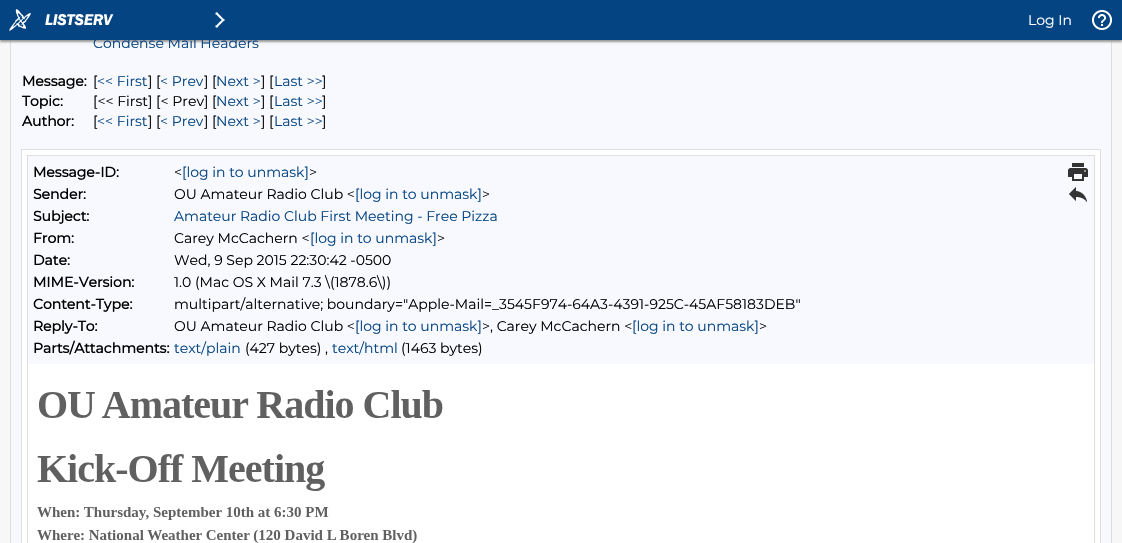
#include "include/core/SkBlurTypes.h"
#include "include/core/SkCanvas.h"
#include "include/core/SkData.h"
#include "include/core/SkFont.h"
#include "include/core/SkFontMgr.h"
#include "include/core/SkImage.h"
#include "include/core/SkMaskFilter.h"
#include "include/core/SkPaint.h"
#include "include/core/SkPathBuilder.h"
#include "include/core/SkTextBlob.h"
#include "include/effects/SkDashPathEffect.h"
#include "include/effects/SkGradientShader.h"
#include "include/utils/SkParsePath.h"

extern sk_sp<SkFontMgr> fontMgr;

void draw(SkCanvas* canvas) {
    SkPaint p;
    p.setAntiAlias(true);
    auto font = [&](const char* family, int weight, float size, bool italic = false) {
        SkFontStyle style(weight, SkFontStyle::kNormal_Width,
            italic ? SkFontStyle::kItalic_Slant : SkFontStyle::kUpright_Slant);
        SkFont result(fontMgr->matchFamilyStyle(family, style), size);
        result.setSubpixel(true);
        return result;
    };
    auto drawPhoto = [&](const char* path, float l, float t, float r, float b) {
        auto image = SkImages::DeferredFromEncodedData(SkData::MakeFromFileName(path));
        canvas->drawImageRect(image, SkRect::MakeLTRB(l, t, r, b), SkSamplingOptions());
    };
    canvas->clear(0xFFF7F7F7);
    p.setColor(0xFFF7F9FE);
    canvas->drawRect(SkRect::MakeLTRB(11, 40, 1111, 543), p);
    p.setStyle(SkPaint::kStroke_Style);
    p.setStrokeWidth(1);
    p.setColor(0xFFDEDEDE);
    canvas->drawRect(SkRect::MakeLTRB(10.5f, -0.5f, 1111.5f, 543.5f), p);
    p.setStyle(SkPaint::kFill_Style);
    p.setColor(0xFF999999);
    p.setMaskFilter(SkMaskFilter::MakeBlur(kNormal_SkBlurStyle, 1));
    canvas->drawRect(SkRect::MakeLTRB(0, 2, 1122, 42), p);
    p.setMaskFilter(nullptr);
    p.setColor(0xFF054483);
    canvas->drawRect(SkRect::MakeLTRB(0, 0, 1122, 40), p);
    drawPhoto("media/1.png", 9, 9, 31, 31);
    drawPhoto("media/2.png", 45, 14, 114, 26);
    drawPhoto("media/3.png", 215, 12, 225, 28);
    auto font1 = font("Montserrat", 100, 14);
    p.setColor(0xFFFFFFFF);
    canvas->drawString("Log In", 1028, 25, font1, p);
    drawPhoto("media/4.png", 1092, 10, 1112, 30);
    p.setColor(0xFF054483);
    canvas->drawString("Condense Mail Headers", 93, 48, font1, p);
    auto font2 = font("Montserrat", 700, 14);
    p.setColor(0xFF000000);
    canvas->drawString("Message:", 22, 86, font2, p);
    canvas->drawString("[", 93, 86, font1, p);
    p.setColor(0xFF054483);
    canvas->drawString("<< First", 97, 86, font1, p);
    p.setColor(0xFF000000);
    canvas->drawString("] [", 148, 86, font1, p);
    p.setColor(0xFF054483);
    canvas->drawString("< Prev", 160, 86, font1, p);
    p.setColor(0xFF000000);
    canvas->drawString("] [", 204, 86, font1, p);
    p.setColor(0xFF054483);
    canvas->drawString("Next >", 216, 86, font1, p);
    p.setColor(0xFF000000);
    canvas->drawString("] [", 261, 86, font1, p);
    p.setColor(0xFF054483);
    canvas->drawString("Last >>", 274, 86, font1, p);
    p.setColor(0xFF000000);
    canvas->drawString("]", 322, 86, font1, p);
    canvas->drawString("Topic:", 22, 106, font2, p);
    canvas->drawString("[<< First] [< Prev] [", 93, 106, font1, p);
    p.setColor(0xFF054483);
    canvas->drawString("Next >", 216, 106, font1, p);
    p.setColor(0xFF000000);
    canvas->drawString("] [", 261, 106, font1, p);
    p.setColor(0xFF054483);
    canvas->drawString("Last >>", 274, 106, font1, p);
    p.setColor(0xFF000000);
    canvas->drawString("]", 322, 106, font1, p);
    canvas->drawString("Author:", 22, 126, font2, p);
    canvas->drawString("[", 93, 126, font1, p);
    p.setColor(0xFF054483);
    canvas->drawString("<< First", 97, 126, font1, p);
    p.setColor(0xFF000000);
    canvas->drawString("] [", 148, 126, font1, p);
    p.setColor(0xFF054483);
    canvas->drawString("< Prev", 160, 126, font1, p);
    p.setColor(0xFF000000);
    canvas->drawString("] [", 204, 126, font1, p);
    p.setColor(0xFF054483);
    canvas->drawString("Next >", 216, 126, font1, p);
    p.setColor(0xFF000000);
    canvas->drawString("] [", 261, 126, font1, p);
    p.setColor(0xFF054483);
    canvas->drawString("Last >>", 274, 126, font1, p);
    p.setColor(0xFF000000);
    canvas->drawString("]", 322, 126, font1, p);
    p.setStyle(SkPaint::kStroke_Style);
    p.setColor(0xFFDEDEDE);
    canvas->drawRect(SkRect::MakeLTRB(21.5f, 149.5f, 1100.5f, 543.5f), p);
    p.setStyle(SkPaint::kFill_Style);
    p.setColor(0xFFFFFFFF);
    canvas->drawRect(SkRect::MakeLTRB(22, 150, 1100, 543), p);
    p.setStyle(SkPaint::kStroke_Style);
    p.setColor(0xFFDEDEDE);
    canvas->drawRect(SkRect::MakeLTRB(27.5f, 155.5f, 1094.5f, 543.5f), p);
    p.setStyle(SkPaint::kFill_Style);
    p.setColor(0xFFF7F9FE);
    canvas->drawRect(SkRect::MakeLTRB(28, 156, 1094, 364), p);
    p.setColor(0xFF000000);
    canvas->drawString("Message-ID:", 33, 177, font2, p);
    canvas->drawString("<", 174, 177, font1, p);
    p.setColor(0xFF054483);
    canvas->drawString("[log in to unmask]", 182, 177, font1, p);
    p.setColor(0xFF000000);
    canvas->drawString(">", 309, 177, font1, p);
    canvas->drawString("Sender:", 33, 199, font2, p);
    canvas->drawString("OU Amateur Radio Club <", 174, 199, font1, p);
    p.setColor(0xFF054483);
    canvas->drawString("[log in to unmask]", 355, 199, font1, p);
    p.setColor(0xFF000000);
    canvas->drawString(">", 482, 199, font1, p);
    canvas->drawString("Subject:", 33, 221, font2, p);
    p.setColor(0xFF054483);
    canvas->drawString("Amateur Radio Club First Meeting - Free Pizza", 174, 221, font1, p);
    p.setColor(0xFF000000);
    canvas->drawString("From:", 33, 243, font2, p);
    canvas->drawString("Carey McCachern <", 174, 243, font1, p);
    p.setColor(0xFF054483);
    canvas->drawString("[log in to unmask]", 310, 243, font1, p);
    p.setColor(0xFF000000);
    canvas->drawString(">", 437, 243, font1, p);
    canvas->drawString("Date:", 33, 265, font2, p);
    canvas->drawString("Wed, 9 Sep 2015 22:30:42 -0500", 174, 265, font1, p);
    canvas->drawString("MIME-Version:", 33, 287, font2, p);
    canvas->drawString("1.0 (Mac OS X Mail 7.3 \\(1878.6\\))", 174, 287, font1, p);
    canvas->drawString("Content-Type:", 33, 309, font2, p);
    canvas->drawString("multipart/alternative; boundary=\"Apple-Mail=_3545F974-64A3-4391-925C-45AF58183DEB\"", 174, 309, font1, p);
    canvas->drawString("Reply-To:", 33, 331, font2, p);
    canvas->drawString("OU Amateur Radio Club <", 174, 331, font1, p);
    p.setColor(0xFF054483);
    canvas->drawString("[log in to unmask]", 355, 331, font1, p);
    p.setColor(0xFF000000);
    canvas->drawString(">, Carey McCachern <", 482, 331, font1, p);
    p.setColor(0xFF054483);
    canvas->drawString("[log in to unmask]", 632, 331, font1, p);
    p.setColor(0xFF000000);
    canvas->drawString(">", 759, 331, font1, p);
    canvas->drawString("Parts/Attachments:", 33, 353, font2, p);
    p.setColor(0xFF054483);
    canvas->drawString("text/plain", 174, 353, font1, p);
    p.setColor(0xFF000000);
    canvas->drawString("(427 bytes) ,", 245, 353, font1, p);
    p.setColor(0xFF054483);
    canvas->drawString("text/html", 332, 353, font1, p);
    p.setColor(0xFF000000);
    canvas->drawString("(1463 bytes)", 401, 353, font1, p);
    drawPhoto("media/5.png", 1068, 163, 1088, 181);
    drawPhoto("media/6.png", 1069, 187, 1087, 202);
    drawPhoto("media/7.png", 37, 390, 443, 543);
}
